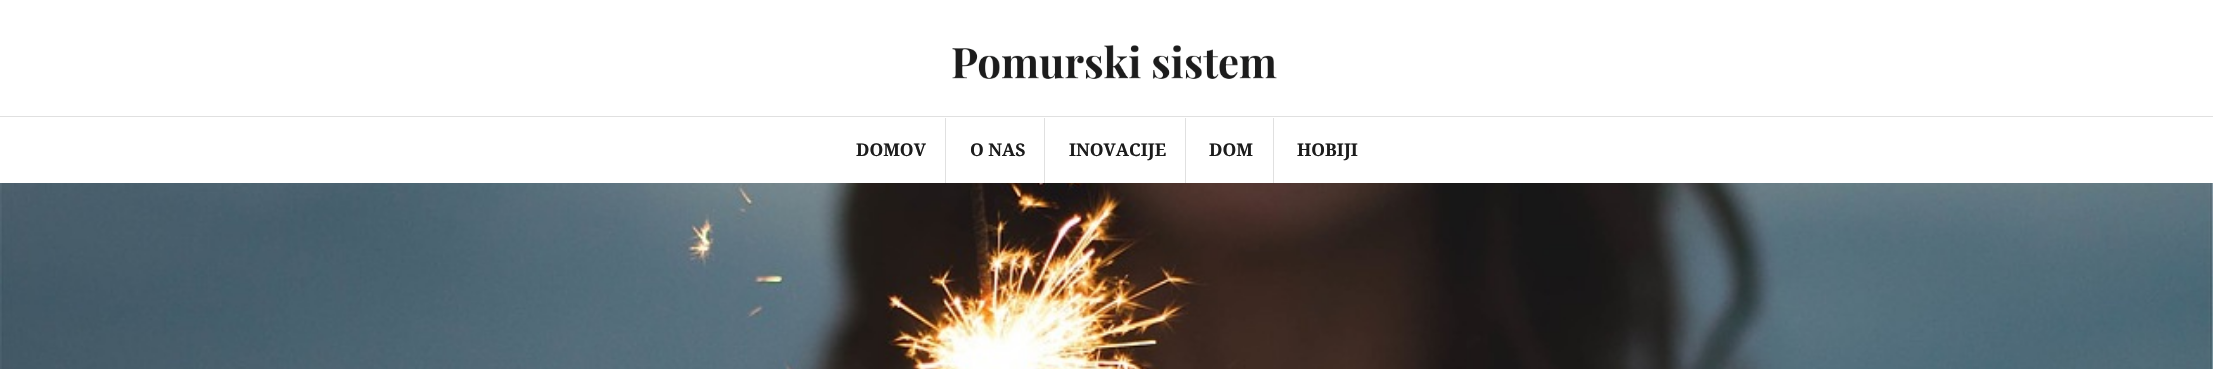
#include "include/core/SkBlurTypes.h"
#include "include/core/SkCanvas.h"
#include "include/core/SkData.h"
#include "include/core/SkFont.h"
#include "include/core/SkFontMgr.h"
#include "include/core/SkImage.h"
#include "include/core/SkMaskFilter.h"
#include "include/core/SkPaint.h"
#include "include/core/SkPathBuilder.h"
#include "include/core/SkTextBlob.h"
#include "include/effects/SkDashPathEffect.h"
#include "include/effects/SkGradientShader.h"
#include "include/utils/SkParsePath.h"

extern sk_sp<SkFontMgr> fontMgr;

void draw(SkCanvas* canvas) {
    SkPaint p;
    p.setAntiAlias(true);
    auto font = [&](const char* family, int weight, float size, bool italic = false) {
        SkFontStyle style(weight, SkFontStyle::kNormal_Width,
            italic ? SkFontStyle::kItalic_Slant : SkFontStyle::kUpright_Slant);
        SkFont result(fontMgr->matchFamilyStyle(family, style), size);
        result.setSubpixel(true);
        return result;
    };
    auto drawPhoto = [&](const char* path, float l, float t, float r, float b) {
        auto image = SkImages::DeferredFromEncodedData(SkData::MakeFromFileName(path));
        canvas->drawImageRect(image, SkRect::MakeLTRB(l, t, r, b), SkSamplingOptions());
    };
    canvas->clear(0xFFFFFFFF);
    drawPhoto("media/1.png", 952, 45, 1277, 79);
    p.setColor(0xFFE0E0E0);
    canvas->drawRect(SkRect::MakeLTRB(0, 116, 2213, 117), p);
    canvas->drawRect(SkRect::MakeLTRB(945, 118, 946, 183), p);
    auto font1 = font("Noto Serif", 700, 17.5f);
    p.setColor(0xFF1C1C1C);
    canvas->drawString("DOMOV", 856, 156, font1, p);
    p.setColor(0xFFE0E0E0);
    canvas->drawRect(SkRect::MakeLTRB(1044, 118, 1045, 183), p);
    p.setColor(0xFF1C1C1C);
    canvas->drawString("O NAS", 970, 156, font1, p);
    p.setColor(0xFFE0E0E0);
    canvas->drawRect(SkRect::MakeLTRB(1185, 118, 1186, 183), p);
    p.setColor(0xFF1C1C1C);
    canvas->drawString("INOVACIJE", 1069, 156, font1, p);
    p.setColor(0xFFE0E0E0);
    canvas->drawRect(SkRect::MakeLTRB(1273, 118, 1274, 183), p);
    p.setColor(0xFF1C1C1C);
    canvas->drawString("DOM", 1209, 156, font1, p);
    canvas->drawString("HOBIJI", 1297, 156, font1, p);
    drawPhoto("media/2.png", 0, 183, 2213, 369);
}
